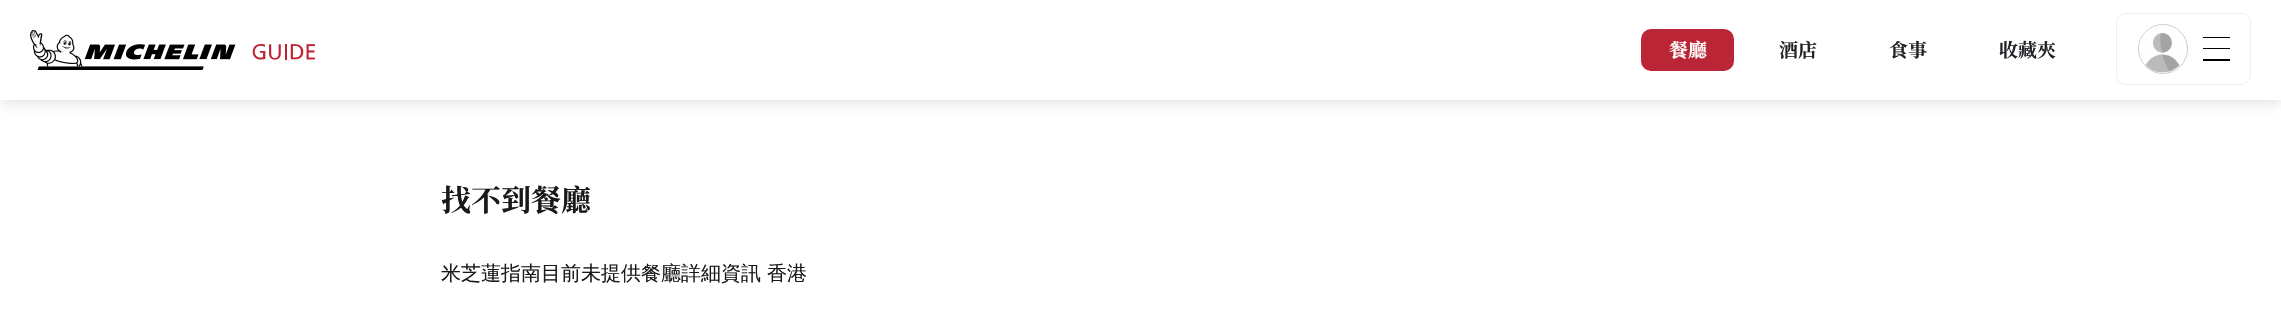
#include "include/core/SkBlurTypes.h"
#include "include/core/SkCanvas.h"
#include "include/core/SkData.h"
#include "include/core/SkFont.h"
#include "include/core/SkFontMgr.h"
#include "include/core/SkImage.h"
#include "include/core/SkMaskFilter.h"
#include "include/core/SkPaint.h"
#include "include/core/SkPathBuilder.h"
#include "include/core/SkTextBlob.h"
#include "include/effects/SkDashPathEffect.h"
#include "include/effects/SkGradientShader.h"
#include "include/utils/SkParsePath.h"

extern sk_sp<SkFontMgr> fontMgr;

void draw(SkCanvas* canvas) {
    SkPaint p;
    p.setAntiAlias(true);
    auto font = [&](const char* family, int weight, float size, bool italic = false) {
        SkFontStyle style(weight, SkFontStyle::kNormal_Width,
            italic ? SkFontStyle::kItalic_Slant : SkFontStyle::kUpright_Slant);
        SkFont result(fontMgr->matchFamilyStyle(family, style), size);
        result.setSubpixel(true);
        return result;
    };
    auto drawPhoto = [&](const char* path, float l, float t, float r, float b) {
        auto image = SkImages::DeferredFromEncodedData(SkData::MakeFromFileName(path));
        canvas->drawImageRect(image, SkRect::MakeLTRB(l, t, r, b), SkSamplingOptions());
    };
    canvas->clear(0xFFFFFFFF);
    canvas->save();
    canvas->clipRect(SkRect::MakeLTRB(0, 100, 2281, 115));
    p.setColor(0xB8CCCCCC);
    p.setMaskFilter(SkMaskFilter::MakeBlur(kNormal_SkBlurStyle, 7.5f));
    canvas->drawRect(SkRect::MakeLTRB(0, 1, 2281, 101), p);
    p.setMaskFilter(nullptr);
    canvas->restore();
    drawPhoto("media/1.png", 30, 30, 315, 70);
    p.setColor(0xFFBB2637);
    canvas->drawRoundRect(SkRect::MakeLTRB(1641, 29, 1734, 71), 10, 10, p);
    auto font1 = font("Noto Serif SC", 700, 19);
    p.setColor(0xFFFFFFFF);
    canvas->drawString("餐廳", 1669, 57, font1, p);
    p.setColor(0xFF222227);
    {
        const struct { const char* s; float x, y; } items[] = {
            {"酒店", 1779, 57},
            {"食事", 1889, 57},
            {"收藏夾", 1999, 57},
        };
        for (auto [s, x, y] : items) {
            canvas->drawString(s, x, y, font1, p);
        }
    }
    p.setStyle(SkPaint::kStroke_Style);
    p.setStrokeWidth(1);
    p.setColor(0xFFEEEEEE);
    canvas->drawRoundRect(SkRect::MakeLTRB(2116.5f, 13.5f, 2250.5f, 84.5f), 9.5f, 9.5f, p);
    p.setColor(0xFFCCCCCC);
    canvas->drawCircle(2163, 49, 24.5f, p);
    drawPhoto("media/2.png", 2139, 25, 2180, 73);
    p.setStyle(SkPaint::kFill_Style);
    {
        const struct { float l, t, r, b; SkColor color; } items[] = {
            {2203, 37, 2230, 38, 0xFF000000},
            {2203, 48, 2230, 49, 0xFF000000},
            {2203, 59, 2230, 61, 0xFF000000},
        };
        for (auto [l, t, r, b, color] : items) {
            p.setColor(color);
            canvas->drawRect(SkRect::MakeLTRB(l, t, r, b), p);
        }
    }
    auto font2 = font("Noto Serif SC", 700, 30);
    p.setColor(0xFF191919);
    canvas->drawString("找不到餐廳", 441, 211, font2, p);
    auto font3 = font("WenQuanYi Zen Hei", 500, 20);
    canvas->drawString("米芝蓮指南目前未提供餐廳詳細資訊 香港", 441, 280, font3, p);
}
